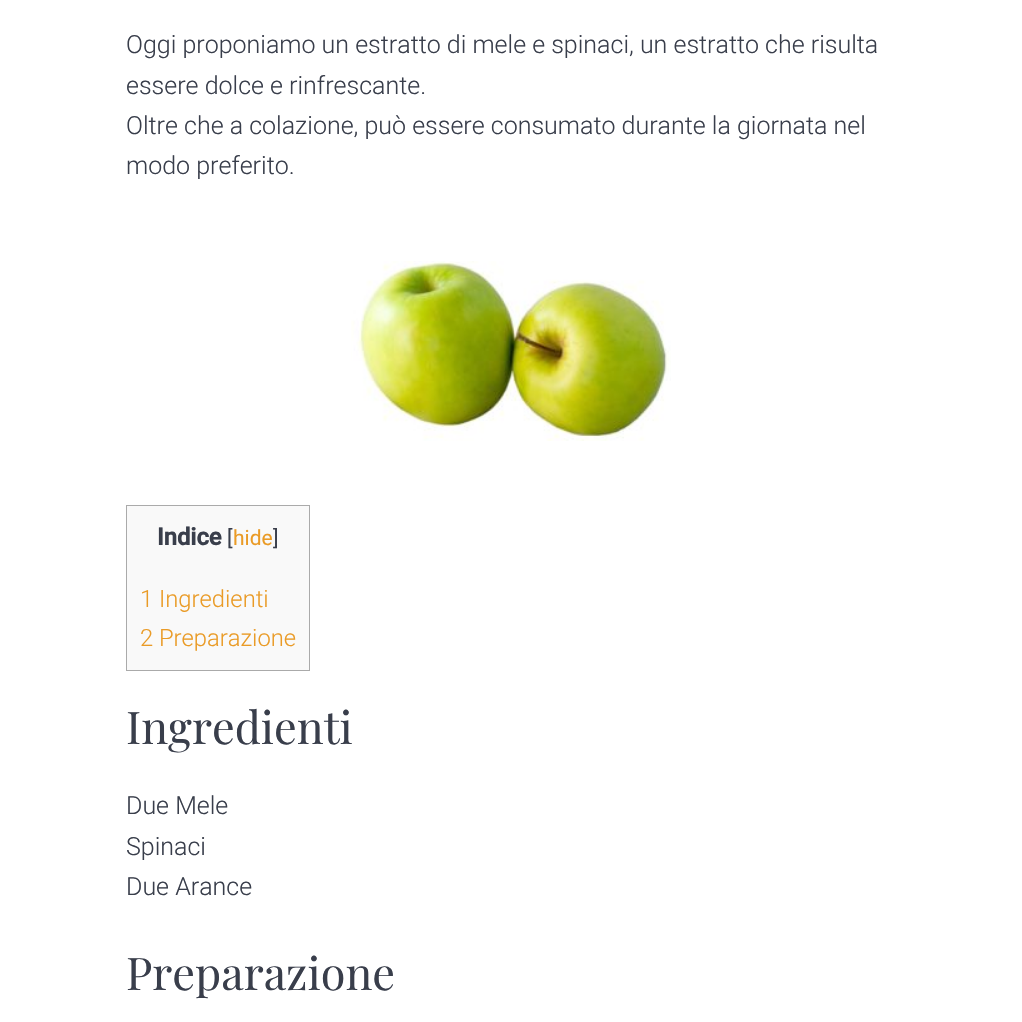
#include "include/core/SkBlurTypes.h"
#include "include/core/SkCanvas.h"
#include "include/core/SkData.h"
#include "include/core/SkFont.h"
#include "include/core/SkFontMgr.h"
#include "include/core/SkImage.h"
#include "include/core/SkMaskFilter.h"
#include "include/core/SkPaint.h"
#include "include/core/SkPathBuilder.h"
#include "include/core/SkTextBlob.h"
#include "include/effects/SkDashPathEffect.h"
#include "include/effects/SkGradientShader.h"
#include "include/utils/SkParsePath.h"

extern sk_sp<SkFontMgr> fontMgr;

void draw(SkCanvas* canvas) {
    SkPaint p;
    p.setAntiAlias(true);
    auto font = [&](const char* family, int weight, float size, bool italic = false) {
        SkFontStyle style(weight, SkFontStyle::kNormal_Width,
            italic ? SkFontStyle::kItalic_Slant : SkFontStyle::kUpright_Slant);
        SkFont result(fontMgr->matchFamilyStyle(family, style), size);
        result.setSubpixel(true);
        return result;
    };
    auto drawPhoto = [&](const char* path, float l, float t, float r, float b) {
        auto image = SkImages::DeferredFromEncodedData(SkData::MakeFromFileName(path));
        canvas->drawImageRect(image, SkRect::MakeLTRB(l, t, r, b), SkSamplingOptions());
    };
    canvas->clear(0xFFFFFFFF);
    auto font1 = font("Roboto", 300, 25);
    p.setColor(0xFF393E4B);
    {
        const struct { const char* s; float x, y; } items[] = {
            {"Oggi proponiamo un estratto di mele e spinaci, un estratto che risulta", 126, 53},
            {"essere dolce e rinfrescante.", 126, 94},
            {"Oltre che a colazione, può essere consumato durante la giornata nel", 126, 134},
            {"modo preferito.", 126, 174},
        };
        for (auto [s, x, y] : items) {
            canvas->drawString(s, x, y, font1, p);
        }
    }
    drawPhoto("media/1.png", 351, 261, 671, 441);
    p.setColor(0xFFF9F9F9);
    canvas->drawRect(SkRect::MakeLTRB(126.5f, 505.5f, 309.5f, 670.5f), p);
    p.setStyle(SkPaint::kStroke_Style);
    p.setStrokeWidth(1);
    p.setColor(0xFFAAAAAA);
    canvas->drawRect(SkRect::MakeLTRB(126.5f, 505.5f, 309.5f, 670.5f), p);
    auto font2 = font("Roboto", 700, 23.75f);
    p.setStyle(SkPaint::kFill_Style);
    p.setColor(0xFF393E4B);
    canvas->drawString("Indice", 157, 545, font2, p);
    auto font3 = font("Roboto", 400, 21);
    canvas->drawString("[", 227, 545, font3, p);
    p.setColor(0xFFEA9B26);
    canvas->drawString("hide", 233, 545, font3, p);
    p.setColor(0xFF393E4B);
    canvas->drawString("]", 273, 545, font3, p);
    auto font4 = font("Roboto", 300, 23.75f);
    p.setColor(0xFFEA9B26);
    canvas->drawString("1 Ingredienti", 140, 607, font4, p);
    canvas->drawString("2 Preparazione", 140, 646, font4, p);
    auto font5 = font("Playfair Display", 400, 45);
    p.setColor(0xFF393E4B);
    canvas->drawString("Ingredienti", 126, 744, font5, p);
    {
        const struct { const char* s; float x, y; } items[] = {
            {"Due Mele", 126, 814},
            {"Spinaci", 126, 855},
            {"Due Arance", 126, 895},
        };
        for (auto [s, x, y] : items) {
            canvas->drawString(s, x, y, font1, p);
        }
    }
    canvas->drawString("Preparazione", 126, 990, font5, p);
}
